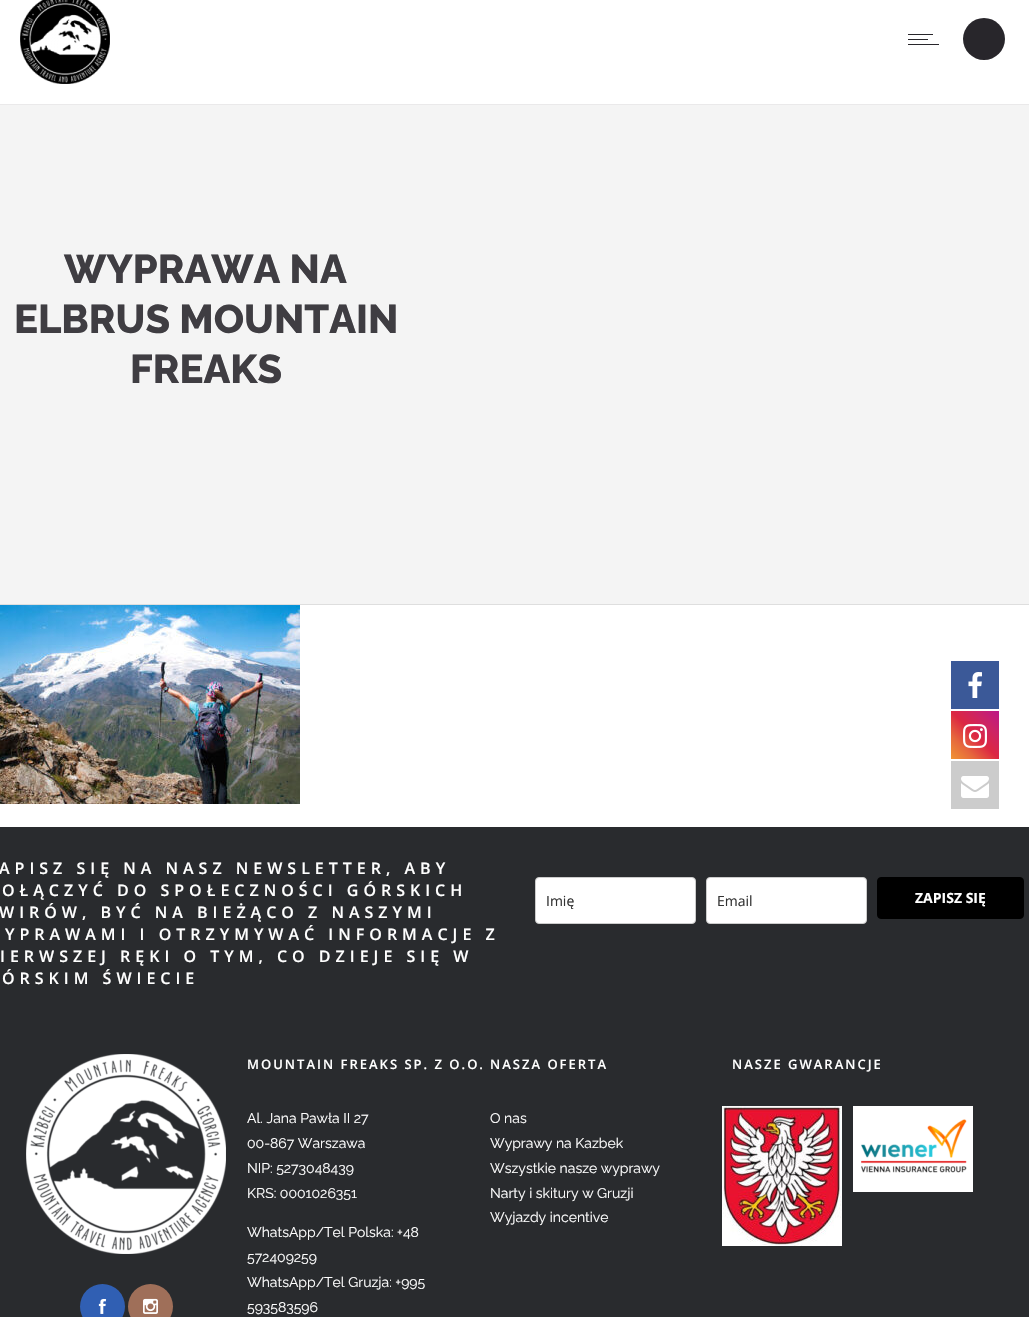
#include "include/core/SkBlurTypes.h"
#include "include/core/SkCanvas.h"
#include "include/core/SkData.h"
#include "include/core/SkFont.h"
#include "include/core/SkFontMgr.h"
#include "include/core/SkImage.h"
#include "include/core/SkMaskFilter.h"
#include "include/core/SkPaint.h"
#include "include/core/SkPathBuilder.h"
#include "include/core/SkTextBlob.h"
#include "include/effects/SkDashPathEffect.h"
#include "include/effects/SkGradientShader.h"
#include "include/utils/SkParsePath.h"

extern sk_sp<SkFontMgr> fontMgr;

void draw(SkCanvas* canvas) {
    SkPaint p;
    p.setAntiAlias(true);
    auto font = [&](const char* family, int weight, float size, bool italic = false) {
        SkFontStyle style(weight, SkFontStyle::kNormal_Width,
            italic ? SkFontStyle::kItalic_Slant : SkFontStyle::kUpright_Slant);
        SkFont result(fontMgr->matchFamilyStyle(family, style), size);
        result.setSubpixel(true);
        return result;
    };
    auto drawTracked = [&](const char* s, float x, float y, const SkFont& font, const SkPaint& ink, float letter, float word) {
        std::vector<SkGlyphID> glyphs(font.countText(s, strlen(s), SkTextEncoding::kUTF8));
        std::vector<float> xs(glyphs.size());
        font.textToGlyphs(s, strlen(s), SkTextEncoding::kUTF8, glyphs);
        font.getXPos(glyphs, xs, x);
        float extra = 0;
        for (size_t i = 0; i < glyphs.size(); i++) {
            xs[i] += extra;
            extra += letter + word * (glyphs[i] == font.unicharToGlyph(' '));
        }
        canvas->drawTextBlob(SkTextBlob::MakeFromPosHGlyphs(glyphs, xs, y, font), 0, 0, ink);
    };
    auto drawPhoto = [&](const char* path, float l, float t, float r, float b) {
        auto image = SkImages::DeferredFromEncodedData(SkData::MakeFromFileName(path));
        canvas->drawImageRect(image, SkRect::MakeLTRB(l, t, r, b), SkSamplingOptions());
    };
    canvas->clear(0xFFFFFFFF);
    p.setColor(0xFFEAE9EA);
    canvas->drawRect(SkRect::MakeLTRB(0, 104, 1029, 105), p);
    drawPhoto("media/1.png", 20, 0, 110, 84);
    {
        const struct { float l, t, r, b; SkColor color; } items[] = {
            {908, 34, 933, 35, 0xFF28262B},
            {908, 39, 928, 40, 0xFF28262B},
            {908, 44, 939, 45, 0xFF28262B},
        };
        for (auto [l, t, r, b, color] : items) {
            p.setColor(color);
            canvas->drawRect(SkRect::MakeLTRB(l, t, r, b), p);
        }
    }
    canvas->drawCircle(984, 39, 21, p);
    p.setColor(0xFFF4F4F4);
    canvas->drawRect(SkRect::MakeLTRB(0, 105, 1029, 604), p);
    auto font1 = font("Raleway", 800, 40);
    p.setColor(0xFF3F3D42);
    {
        const struct { const char* s; float x, y; } items[] = {
            {"WYPRAWA NA", 64, 283},
            {"ELBRUS MOUNTAIN", 14, 333},
            {"FREAKS", 130, 383},
        };
        for (auto [s, x, y] : items) {
            canvas->drawString(s, x, y, font1, p);
        }
    }
    p.setColor(0xFFDEDEDE);
    canvas->drawRect(SkRect::MakeLTRB(0, 604, 1029, 605), p);
    drawPhoto("media/2.png", 0, 605, 300, 804);
    p.setColor(0xFF292B2E);
    canvas->drawRect(SkRect::MakeLTRB(0, 827, 1029, 1317), p);
    auto font2 = font("Open Sans", 600, 16);
    p.setColor(0xFFFFFFFF);
    {
        const struct { const char* s; float x, y; } items[] = {
            {"APISZ SIĘ NA NASZ NEWSLETTER, ABY", -1, 874},
            {"OŁĄCZYĆ DO SPOŁECZNOŚCI GÓRSKICH", 2, 896},
            {"WIRÓW, BYĆ NA BIEŻĄCO Z NASZYMI", -1, 918},
            {"YPRAWAMI I OTRZYMYWAĆ INFORMACJE Z", 5, 940},
            {"IERWSZEJ RĘKI O TYM, CO DZIEJE SIĘ W", 0, 962},
            {"ÓRSKIM ŚWIECIE", 2, 984},
        };
        for (auto [s, x, y] : items) {
            drawTracked(s, x, y, font2, p, 5, 0);
        }
    }
    canvas->drawRoundRect(SkRect::MakeLTRB(535.5f, 877.5f, 695.5f, 923.5f), 3.5f, 3.5f, p);
    p.setStyle(SkPaint::kStroke_Style);
    p.setStrokeWidth(1);
    p.setColor(0xFFCCCCCC);
    canvas->drawRoundRect(SkRect::MakeLTRB(535.5f, 877.5f, 695.5f, 923.5f), 3.5f, 3.5f, p);
    auto font3 = font("Open Sans", 400, 14);
    p.setStyle(SkPaint::kFill_Style);
    p.setColor(0xFF333333);
    canvas->drawString("Imię", 546, 906, font3, p);
    p.setColor(0xFFFFFFFF);
    canvas->drawRoundRect(SkRect::MakeLTRB(706.5f, 877.5f, 866.5f, 923.5f), 3.5f, 3.5f, p);
    p.setStyle(SkPaint::kStroke_Style);
    p.setColor(0xFFCCCCCC);
    canvas->drawRoundRect(SkRect::MakeLTRB(706.5f, 877.5f, 866.5f, 923.5f), 3.5f, 3.5f, p);
    p.setStyle(SkPaint::kFill_Style);
    p.setColor(0xFF333333);
    canvas->drawString("Email", 717, 906, font3, p);
    p.setColor(0xFF000000);
    canvas->drawRoundRect(SkRect::MakeLTRB(877.5f, 877.5f, 1023.5f, 918.5f), 3.5f, 3.5f, p);
    p.setStyle(SkPaint::kStroke_Style);
    canvas->drawRoundRect(SkRect::MakeLTRB(877.5f, 877.5f, 1023.5f, 918.5f), 3.5f, 3.5f, p);
    auto font4 = font("Open Sans", 700, 14);
    p.setStyle(SkPaint::kFill_Style);
    p.setColor(0xFFFFFFFF);
    canvas->drawString("ZAPISZ SIĘ", 915, 903, font4, p);
    drawPhoto("media/3.png", 26, 1054, 226, 1254);
    p.setColor(0xFF305FB3);
    canvas->drawCircle(102.5f, 1306.5f, 22.5f, p);
    drawPhoto("media/4.png", 98, 1298, 107, 1314);
    p.setColor(0xFF9F6F59);
    canvas->drawCircle(150.5f, 1306.5f, 22.5f, p);
    drawPhoto("media/5.png", 143, 1298, 158, 1314);
    auto font5 = font("Open Sans", 600, 13);
    p.setColor(0xFFFFFFFF);
    drawTracked("MOUNTAIN FREAKS SP. Z O.O.", 247, 1069, font5, p, 2, 0);
    auto font6 = font("Raleway", 400, 14);
    {
        const struct { const char* s; float x, y; } items[] = {
            {"Al. Jana Pawła II 27", 247, 1123},
            {"00-867 Warszawa", 247, 1148},
            {"NIP: 5273048439", 247, 1173},
            {"KRS: 0001026351", 247, 1198},
            {"WhatsApp/Tel Polska: +48", 247, 1237},
            {"572409259", 247, 1262},
            {"WhatsApp/Tel Gruzja: +995", 247, 1287},
            {"593583596", 247, 1312},
        };
        for (auto [s, x, y] : items) {
            canvas->drawString(s, x, y, font6, p);
        }
    }
    drawTracked("NASZA OFERTA", 490, 1069, font5, p, 2, 0);
    {
        const struct { const char* s; float x, y; } items[] = {
            {"O nas", 490, 1123},
            {"Wyprawy na Kazbek", 490, 1148},
            {"Wszystkie nasze wyprawy", 490, 1173},
            {"Narty i skitury w Gruzji", 490, 1198},
            {"Wyjazdy incentive", 490, 1222},
        };
        for (auto [s, x, y] : items) {
            canvas->drawString(s, x, y, font6, p);
        }
    }
    drawTracked("NASZE GWARANCJE", 732, 1069, font5, p, 2, 0);
    drawPhoto("media/6.png", 722, 1106, 842, 1246);
    drawPhoto("media/7.png", 853, 1106, 973, 1192);
    p.setColor(0xFF3B5998);
    canvas->drawRect(SkRect::MakeLTRB(951, 661, 999, 709), p);
    drawPhoto("media/8.png", 968, 672, 982, 698);
    {
        const SkColor colors[] = {0xFFF09433, 0xFFE6683C, 0xFFDC2743, 0xFFCC2366, 0xFFBC1888};
        const float stops[] = {0, 0.25f, 0.5f, 0.75f, 1};
        const SkPoint ends[] = {{951, 759}, {999, 711}};
        p.setShader(SkGradientShader::MakeLinear(ends, colors, stops, 5, SkTileMode::kClamp));
        p.setAlpha(255);
    }
    canvas->drawRect(SkRect::MakeLTRB(951, 711, 999, 759), p);
    drawPhoto("media/9.png", 963, 724, 987, 748);
    p.setShader(nullptr);
    p.setColor(0xFFCCCCCC);
    canvas->drawRect(SkRect::MakeLTRB(951, 761, 999, 809), p);
    drawPhoto("media/10.png", 961, 776, 989, 798);
}
